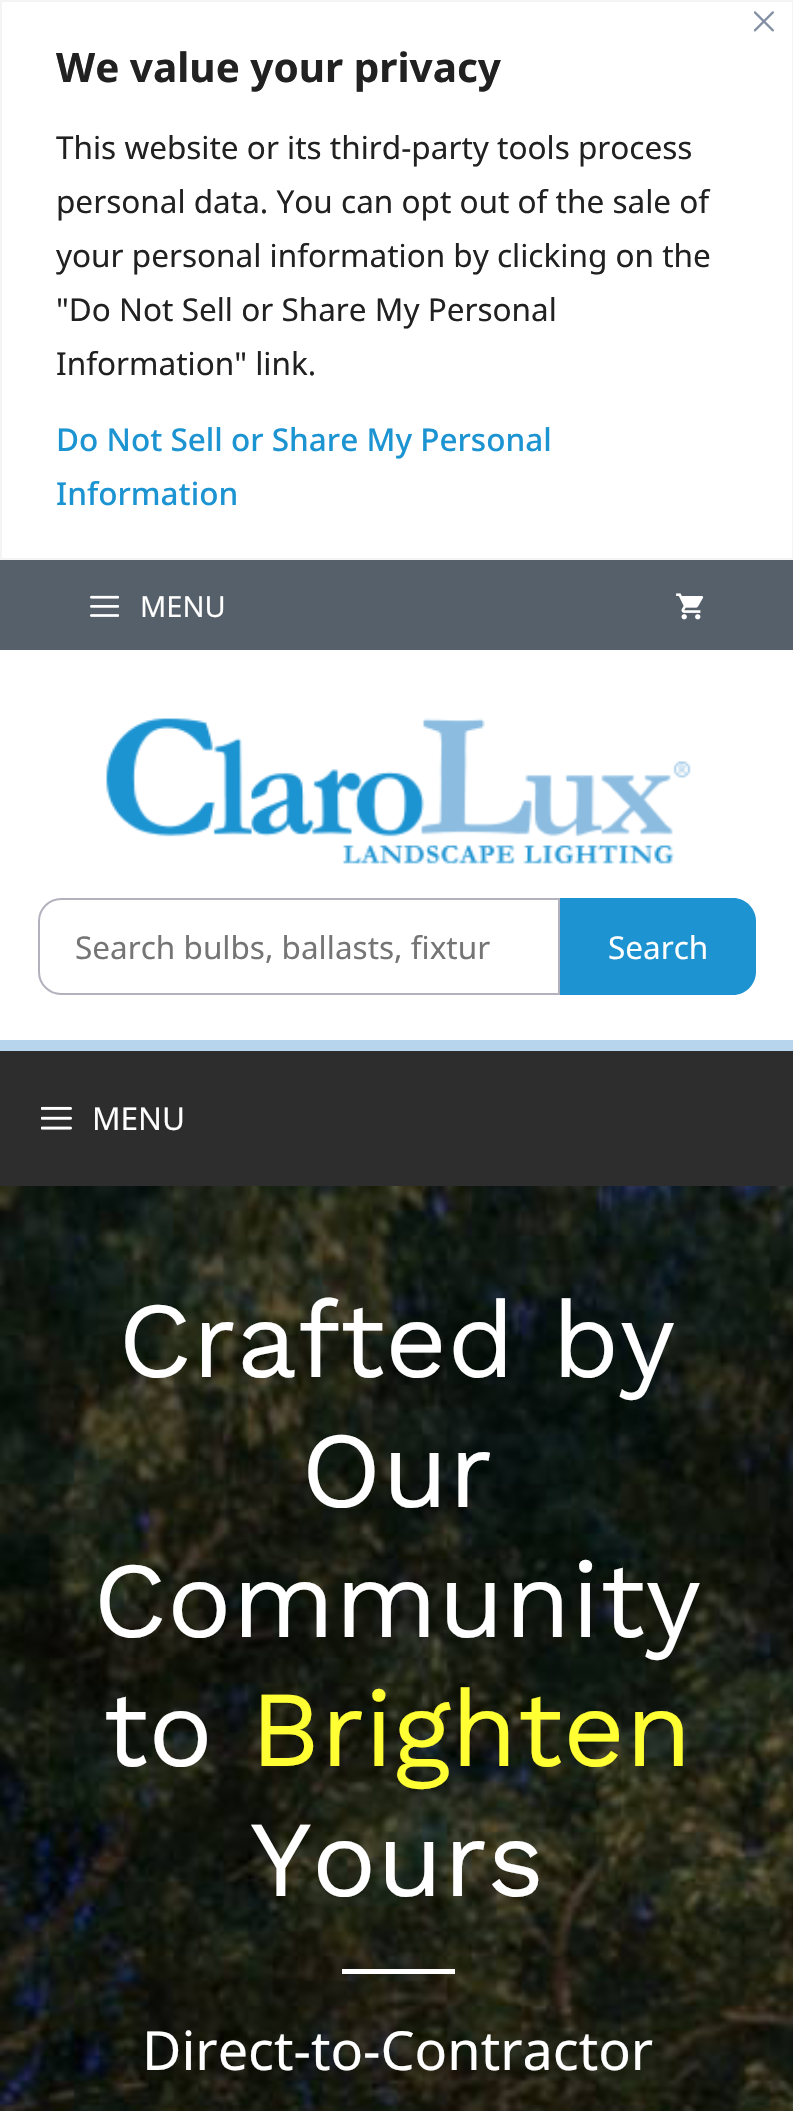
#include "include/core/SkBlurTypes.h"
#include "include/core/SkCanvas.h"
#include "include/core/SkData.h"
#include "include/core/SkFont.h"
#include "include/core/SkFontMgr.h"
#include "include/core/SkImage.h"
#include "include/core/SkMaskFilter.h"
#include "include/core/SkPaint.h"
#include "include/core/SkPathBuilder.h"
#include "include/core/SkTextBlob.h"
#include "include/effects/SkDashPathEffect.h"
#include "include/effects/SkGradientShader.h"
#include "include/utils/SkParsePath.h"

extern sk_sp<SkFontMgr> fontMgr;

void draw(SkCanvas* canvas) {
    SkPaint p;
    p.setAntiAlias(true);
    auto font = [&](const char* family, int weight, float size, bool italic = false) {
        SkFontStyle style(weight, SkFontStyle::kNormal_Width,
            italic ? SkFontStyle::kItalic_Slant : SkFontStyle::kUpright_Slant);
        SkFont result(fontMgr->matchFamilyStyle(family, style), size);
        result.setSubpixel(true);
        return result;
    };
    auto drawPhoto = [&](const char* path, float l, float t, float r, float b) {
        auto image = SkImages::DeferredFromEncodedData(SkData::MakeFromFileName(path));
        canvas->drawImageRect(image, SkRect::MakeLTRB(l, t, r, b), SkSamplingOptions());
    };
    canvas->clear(0xFFFFFFFF);
    p.setStyle(SkPaint::kStroke_Style);
    p.setStrokeWidth(2);
    p.setColor(0xFFF4F4F4);
    canvas->drawRect(SkRect::MakeLTRB(1, 1, 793, 559), p);
    drawPhoto("media/1.png", 754, 11, 774, 32);
    auto font1 = font("Noto Sans", 700, 40.5f);
    p.setStyle(SkPaint::kFill_Style);
    p.setColor(0xFF212121);
    canvas->drawString("We value your privacy", 56, 82, font1, p);
    auto font2 = font("Noto Sans", 400, 31.5f);
    {
        const struct { const char* s; float x, y; } items[] = {
            {"This website or its third-party tools process", 56, 159},
            {"personal data. You can opt out of the sale of", 56, 213},
            {"your personal information by clicking on the", 56, 267},
            {"\"Do Not Sell or Share My Personal", 56, 321},
            {"Information\" link.", 56, 375},
        };
        for (auto [s, x, y] : items) {
            canvas->drawString(s, x, y, font2, p);
        }
    }
    auto font3 = font("Noto Sans", 500, 31.5f);
    p.setColor(0xFF1D94D2);
    canvas->drawString("Do Not Sell or Share My Personal", 56, 451, font3, p);
    canvas->drawString("Information", 56, 505, font3, p);
    p.setColor(0xFF56606A);
    canvas->drawRect(SkRect::MakeLTRB(0, 560, 793, 650), p);
    drawPhoto("media/2.png", 90, 595, 119, 617);
    auto font4 = font("Noto Sans", 400, 29);
    p.setColor(0xFFFFFFFF);
    canvas->drawString("MENU", 140, 617, font4, p);
    drawPhoto("media/3.png", 676, 593, 704, 620);
    drawPhoto("media/4.png", 106, 718, 691, 864);
    p.setStyle(SkPaint::kStroke_Style);
    p.setColor(0xFFB2B2BE);
    canvas->drawPath(SkPathBuilder().moveTo(61, 899).lineTo(559, 899).lineTo(559, 994).lineTo(61, 994).cubicTo(49, 994, 39, 984, 39, 972).lineTo(39, 921).cubicTo(39, 909, 49, 899, 61, 899).close().detach(), p);
    p.setStyle(SkPaint::kFill_Style);
    p.setColor(0xFF757575);
    canvas->drawString("Search bulbs, ballasts, fixtur", 75, 959, font2, p);
    p.setColor(0xFF1D93D1);
    canvas->drawPath(SkPathBuilder().moveTo(560, 898).lineTo(733, 898).cubicTo(745.5f, 898, 756, 908.5f, 756, 921).lineTo(756, 972).cubicTo(756, 984.5f, 745.5f, 995, 733, 995).lineTo(560, 995).close().detach(), p);
    p.setColor(0xFFFFFFFF);
    canvas->drawString("Search", 608, 959, font2, p);
    p.setColor(0xFF2D2D2D);
    canvas->drawRect(SkRect::MakeLTRB(0, 1051, 793, 1186), p);
    p.setColor(0xFFB7D6ED);
    canvas->drawRect(SkRect::MakeLTRB(0, 1040, 793, 1051), p);
    drawPhoto("media/5.png", 41, 1106, 72, 1130);
    p.setColor(0xFFFFFFFF);
    canvas->drawString("MENU", 92, 1130, font2, p);
    drawPhoto("media/6.png", 0, 1186, 793, 2111);
    auto font5 = font("Work Sans", 400, 108);
    {
        const struct { const char* s; float x, y; } items[] = {
            {"Crafted by", 118, 1377},
            {"Our", 301, 1507},
            {"Community", 93, 1637},
            {"to", 103, 1766},
        };
        for (auto [s, x, y] : items) {
            canvas->drawString(s, x, y, font5, p);
        }
    }
    p.setColor(0xFFFFFF33);
    canvas->drawString("Brighten", 250, 1766, font5, p);
    p.setColor(0xFFFFFFFF);
    canvas->drawString("Yours", 250, 1896, font5, p);
    canvas->drawRect(SkRect::MakeLTRB(342, 1969, 455, 1974), p);
    auto font6 = font("Noto Sans", 400, 54);
    canvas->drawString("Direct-to-Contractor", 142, 2070, font6, p);
}
